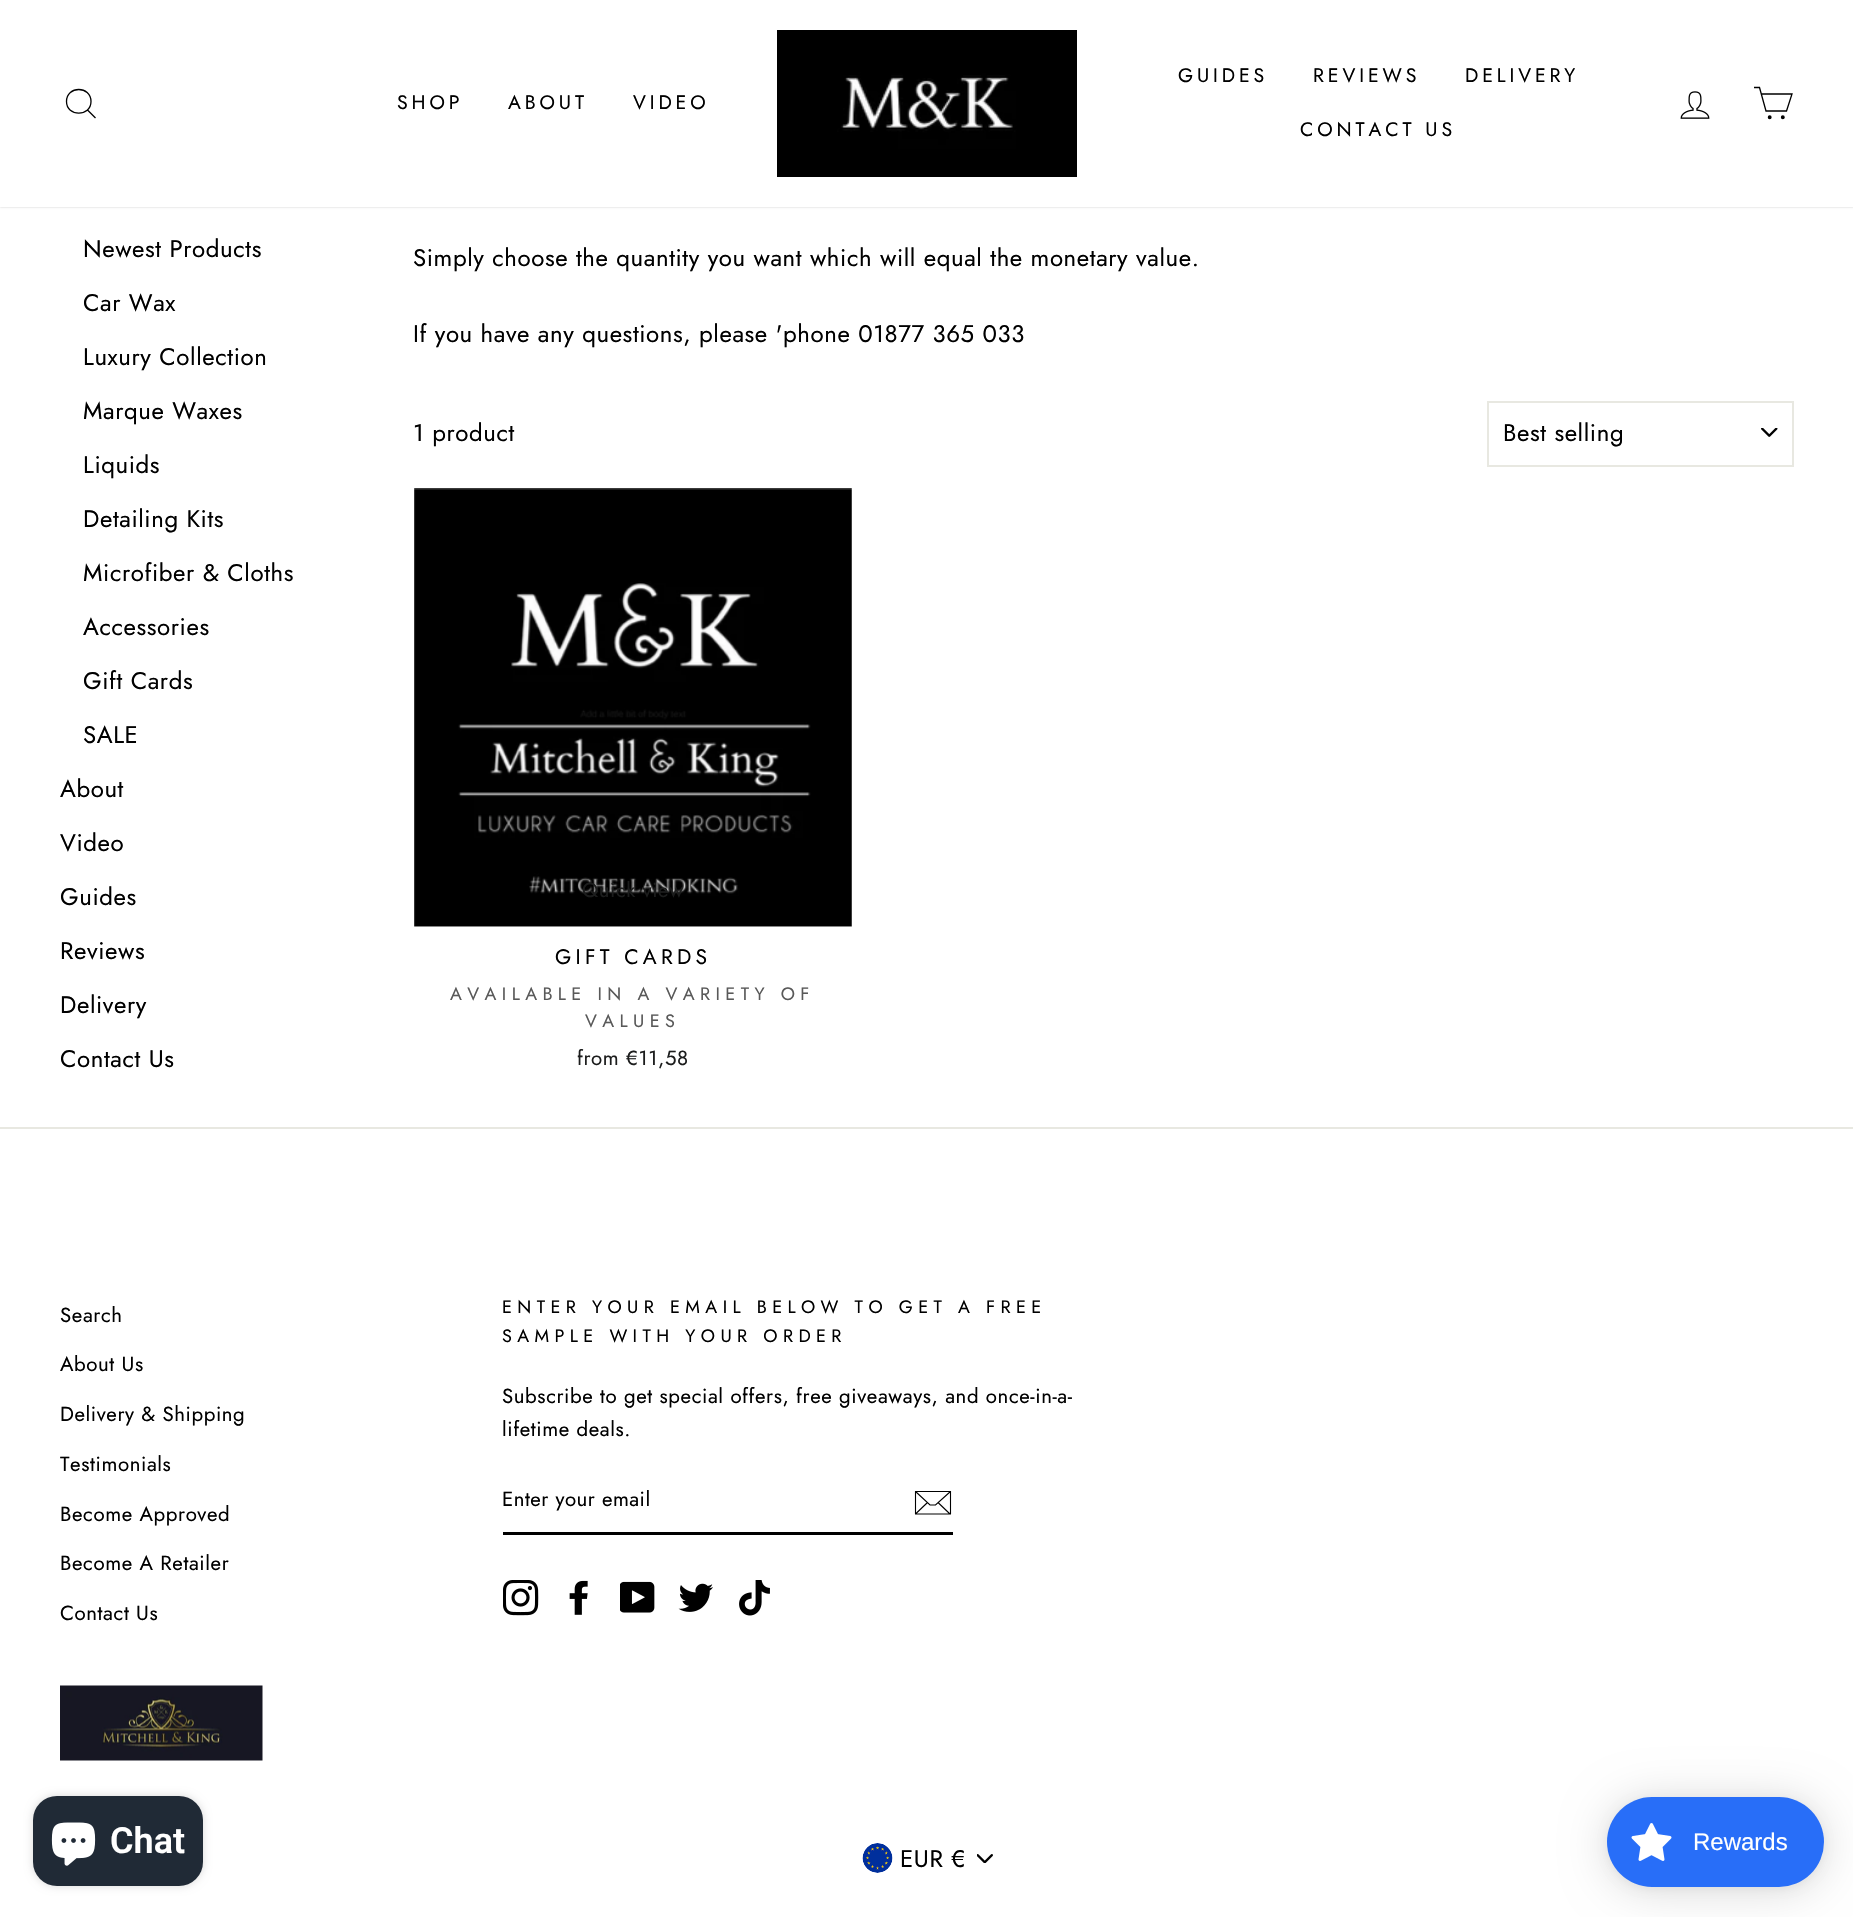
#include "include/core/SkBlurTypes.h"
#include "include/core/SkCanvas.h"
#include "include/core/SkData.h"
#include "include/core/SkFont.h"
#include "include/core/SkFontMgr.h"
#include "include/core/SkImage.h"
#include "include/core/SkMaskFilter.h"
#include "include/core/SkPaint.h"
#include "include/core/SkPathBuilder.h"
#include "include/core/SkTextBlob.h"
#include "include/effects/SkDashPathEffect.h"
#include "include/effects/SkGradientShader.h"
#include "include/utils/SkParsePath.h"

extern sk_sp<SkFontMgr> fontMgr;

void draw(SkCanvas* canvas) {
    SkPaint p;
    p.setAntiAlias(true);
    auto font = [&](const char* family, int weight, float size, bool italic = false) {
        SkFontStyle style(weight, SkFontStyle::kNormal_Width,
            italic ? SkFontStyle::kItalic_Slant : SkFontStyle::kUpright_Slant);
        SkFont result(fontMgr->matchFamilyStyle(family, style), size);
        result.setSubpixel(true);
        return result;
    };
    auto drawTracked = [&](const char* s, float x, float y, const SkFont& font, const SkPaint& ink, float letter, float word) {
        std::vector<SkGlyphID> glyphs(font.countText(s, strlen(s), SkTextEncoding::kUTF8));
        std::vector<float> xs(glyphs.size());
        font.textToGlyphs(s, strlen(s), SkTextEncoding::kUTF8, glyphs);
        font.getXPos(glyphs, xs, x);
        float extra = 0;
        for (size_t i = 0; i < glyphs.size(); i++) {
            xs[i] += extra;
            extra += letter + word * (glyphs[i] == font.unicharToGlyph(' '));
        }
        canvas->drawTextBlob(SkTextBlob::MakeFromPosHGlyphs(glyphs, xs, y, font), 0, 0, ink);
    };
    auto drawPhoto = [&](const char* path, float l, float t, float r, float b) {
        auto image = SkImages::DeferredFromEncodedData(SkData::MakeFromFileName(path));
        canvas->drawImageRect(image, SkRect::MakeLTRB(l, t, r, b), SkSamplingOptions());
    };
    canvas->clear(0xFFFFFFFF);
    p.setColor(0x33000000);
    p.setMaskFilter(SkMaskFilter::MakeBlur(kNormal_SkBlurStyle, 1));
    canvas->drawRect(SkRect::MakeLTRB(0, 0, 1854, 207), p);
    p.setMaskFilter(nullptr);
    p.setColor(0xFFFFFFFF);
    canvas->drawRect(SkRect::MakeLTRB(0, 0, 1853, 207), p);
    p.setStyle(SkPaint::kStroke_Style);
    p.setStrokeWidth(1.3f);
    p.setColor(0xFF000000);
    canvas->drawPath(SkPathBuilder().moveTo(91, 101.5f).cubicTo(91, 117, 66.5f, 117, 66.5f, 101.5f).cubicTo(66.5f, 85.5f, 91, 85.5f, 91, 101.5f).close().moveTo(95.5f, 118).lineTo(87.5f, 110).detach(), p);
    auto font1 = font("Jost", 400, 19.5f);
    p.setStyle(SkPaint::kFill_Style);
    {
        const struct { const char* s; float x, y; } items[] = {
            {"SHOP", 397, 109},
            {"ABOUT", 508, 109},
            {"VIDEO", 633, 109},
        };
        for (auto [s, x, y] : items) {
            drawTracked(s, x, y, font1, p, 3.9f, 0);
        }
    }
    drawPhoto("media/1.png", 777, 30, 1077, 177);
    {
        const struct { const char* s; float x, y; } items[] = {
            {"GUIDES", 1178, 82},
            {"REVIEWS", 1313, 82},
            {"DELIVERY", 1465, 82},
            {"CONTACT US", 1300, 136},
        };
        for (auto [s, x, y] : items) {
            drawTracked(s, x, y, font1, p, 3.9f, 0);
        }
    }
    drawPhoto("media/2.png", 1680, 91, 1710, 119);
    p.setStyle(SkPaint::kStroke_Style);
    canvas->drawPath(SkPathBuilder().moveTo(1761, 94).lineTo(1792, 94).lineTo(1786.5f, 111).lineTo(1766, 111).lineTo(1759.5f, 87.5f).lineTo(1754, 87.5f).detach(), p);
    p.setStyle(SkPaint::kFill_Style);
    canvas->drawCircle(1769.7f, 117.3f, 1.3f, p);
    p.setStyle(SkPaint::kStroke_Style);
    canvas->drawCircle(1769.7f, 117.3f, 1.3f, p);
    p.setStyle(SkPaint::kFill_Style);
    canvas->drawCircle(1782.8f, 117.3f, 1.3f, p);
    p.setStyle(SkPaint::kStroke_Style);
    canvas->drawCircle(1782.8f, 117.3f, 1.3f, p);
    auto font2 = font("Jost", 400, 24);
    p.setStyle(SkPaint::kFill_Style);
    {
        const struct { const char* s; float x, y; } items[] = {
            {"Newest Products", 83, 257},
            {"Car Wax", 83, 311},
            {"Luxury Collection", 83, 365},
            {"Marque Waxes", 83, 419},
            {"Liquids", 83, 473},
            {"Detailing Kits", 83, 527},
            {"Microfiber & Cloths", 83, 581},
            {"Accessories", 83, 635},
            {"Gift Cards", 83, 689},
            {"SALE", 83, 743},
            {"About", 60, 797},
            {"Video", 60, 851},
            {"Guides", 60, 905},
            {"Reviews", 60, 959},
            {"Delivery", 60, 1013},
            {"Contact Us", 60, 1067},
            {"Simply choose the quantity you want which will equal the monetary value.", 413, 266},
            {"If you have any questions, please 'phone 01877 365 033", 413, 342},
            {"1 product", 413, 441},
        };
        for (auto [s, x, y] : items) {
            drawTracked(s, x, y, font2, p, 0.6f, 0);
        }
    }
    drawPhoto("media/3.png", 1761, 428, 1778, 437);
    p.setStyle(SkPaint::kStroke_Style);
    p.setStrokeWidth(2);
    p.setColor(0xFFE8E8E1);
    canvas->drawRect(SkRect::MakeLTRB(1488, 402, 1793, 466), p);
    p.setStyle(SkPaint::kFill_Style);
    p.setColor(0xFF000000);
    drawTracked("Best selling", 1503, 441, font2, p, 0.6f, 0);
    drawPhoto("media/4.png", 414, 488, 852, 927);
    auto font3 = font("Jost", 400, 20.4f);
    p.setColor(0xFF1C1D1D);
    drawTracked("Quick view", 582, 897, font3, p, 0.6f, 0);
    auto font4 = font("Jost", 400, 21);
    p.setColor(0xFF000000);
    drawTracked("GIFT CARDS", 555, 964, font4, p, 4.25f, 0);
    auto font5 = font("Jost", 400, 18);
    p.setColor(0xFF595959);
    drawTracked("AVAILABLE IN A VARIETY OF", 450, 1000, font5, p, 5.4f, 0);
    drawTracked("VALUES", 585, 1027, font5, p, 5.4f, 0);
    p.setColor(0xFF1C1D1D);
    drawTracked("from €11,58", 577, 1065, font3, p, 0.6f, 0);
    p.setColor(0xFFE8E8E1);
    canvas->drawRect(SkRect::MakeLTRB(0, 1127, 1853, 1129), p);
    p.setColor(0xFF000000);
    {
        const struct { const char* s; float x, y; } items[] = {
            {"Search", 60, 1322},
            {"About Us", 60, 1371},
            {"Delivery & Shipping", 60, 1421},
            {"Testimonials", 60, 1471},
            {"Become Approved", 60, 1521},
            {"Become A Retailer", 60, 1570},
            {"Contact Us", 60, 1620},
        };
        for (auto [s, x, y] : items) {
            drawTracked(s, x, y, font3, p, 0.6f, 0);
        }
    }
    drawTracked("ENTER YOUR EMAIL BELOW TO GET A FREE", 502, 1313, font5, p, 5.4f, 0);
    drawTracked("SAMPLE WITH YOUR ORDER", 502, 1342, font5, p, 5.4f, 0);
    drawTracked("Subscribe to get special offers, free giveaways, and once-in-a-", 502, 1403, font3, p, 0.6f, 0);
    drawTracked("lifetime deals.", 502, 1436, font3, p, 0.6f, 0);
    canvas->drawRect(SkRect::MakeLTRB(503, 1532, 953, 1535), p);
    drawTracked("Enter your email", 502, 1506, font3, p, 0.5f, 0);
    p.setStyle(SkPaint::kStroke_Style);
    p.setStrokeWidth(1.1f);
    canvas->drawPath(SkPathBuilder().moveTo(950.5f, 1514).lineTo(915.5f, 1514).lineTo(915.5f, 1491.5f).lineTo(950.5f, 1491.5f).close().moveTo(915.5f, 1491.5f).lineTo(930, 1505).lineTo(935.5f, 1505).lineTo(950.5f, 1491.5f).moveTo(927.5f, 1502.5f).lineTo(916, 1513.5f).moveTo(950, 1514).lineTo(938, 1502.5f).detach(), p);
    drawPhoto("media/5.png", 503, 1580, 539, 1616);
    drawPhoto("media/6.png", 569, 1580, 588, 1615);
    drawPhoto("media/7.png", 620, 1581, 655, 1613);
    drawPhoto("media/8.png", 678, 1583, 713, 1612);
    drawPhoto("media/9.png", 739, 1580, 770, 1616);
    drawPhoto("media/10.png", 60, 1685, 263, 1761);
    drawPhoto("media/11.png", 977, 1854, 993, 1863);
    drawPhoto("media/12.png", 862, 1843, 893, 1873);
    p.setStyle(SkPaint::kFill_Style);
    drawTracked("EUR €", 900, 1867, font2, p, 0.6f, 0);
    p.setColor(0x26000000);
    p.setMaskFilter(SkMaskFilter::MakeBlur(kNormal_SkBlurStyle, 4));
    canvas->drawRoundRect(SkRect::MakeLTRB(33, 1796, 203, 1886), 24, 24, p);
    p.setMaskFilter(nullptr);
    p.setColor(0xFF202A36);
    canvas->drawRoundRect(SkRect::MakeLTRB(33, 1796, 203, 1886), 24, 24, p);
    drawPhoto("media/13.png", 51, 1822, 96, 1866);
    auto font6 = font("Roboto", 600, 36);
    p.setColor(0xFFFFFFFF);
    canvas->drawString("Chat", 110, 1853, font6, p);
    p.setColor(0x26000000);
    p.setMaskFilter(SkMaskFilter::MakeBlur(kNormal_SkBlurStyle, 22.5f));
    canvas->drawRoundRect(SkRect::MakeLTRB(1607, 1800, 1824, 1890), 45, 45, p);
    p.setMaskFilter(nullptr);
    p.setColor(0x0D000000);
    p.setMaskFilter(SkMaskFilter::MakeBlur(kNormal_SkBlurStyle, 4.5f));
    canvas->drawRoundRect(SkRect::MakeLTRB(1607, 1799, 1824, 1889), 45, 45, p);
    p.setMaskFilter(nullptr);
    p.setColor(0xFF286EF8);
    canvas->drawRoundRect(SkRect::MakeLTRB(1607, 1797, 1824, 1887), 45, 45, p);
    drawPhoto("media/14.png", 1631, 1823, 1672, 1861);
    auto font7 = font("Liberation Sans", 400, 24);
    p.setColor(0xFFFFFFFF);
    canvas->drawString("Rewards", 1693, 1850, font7, p);
}
